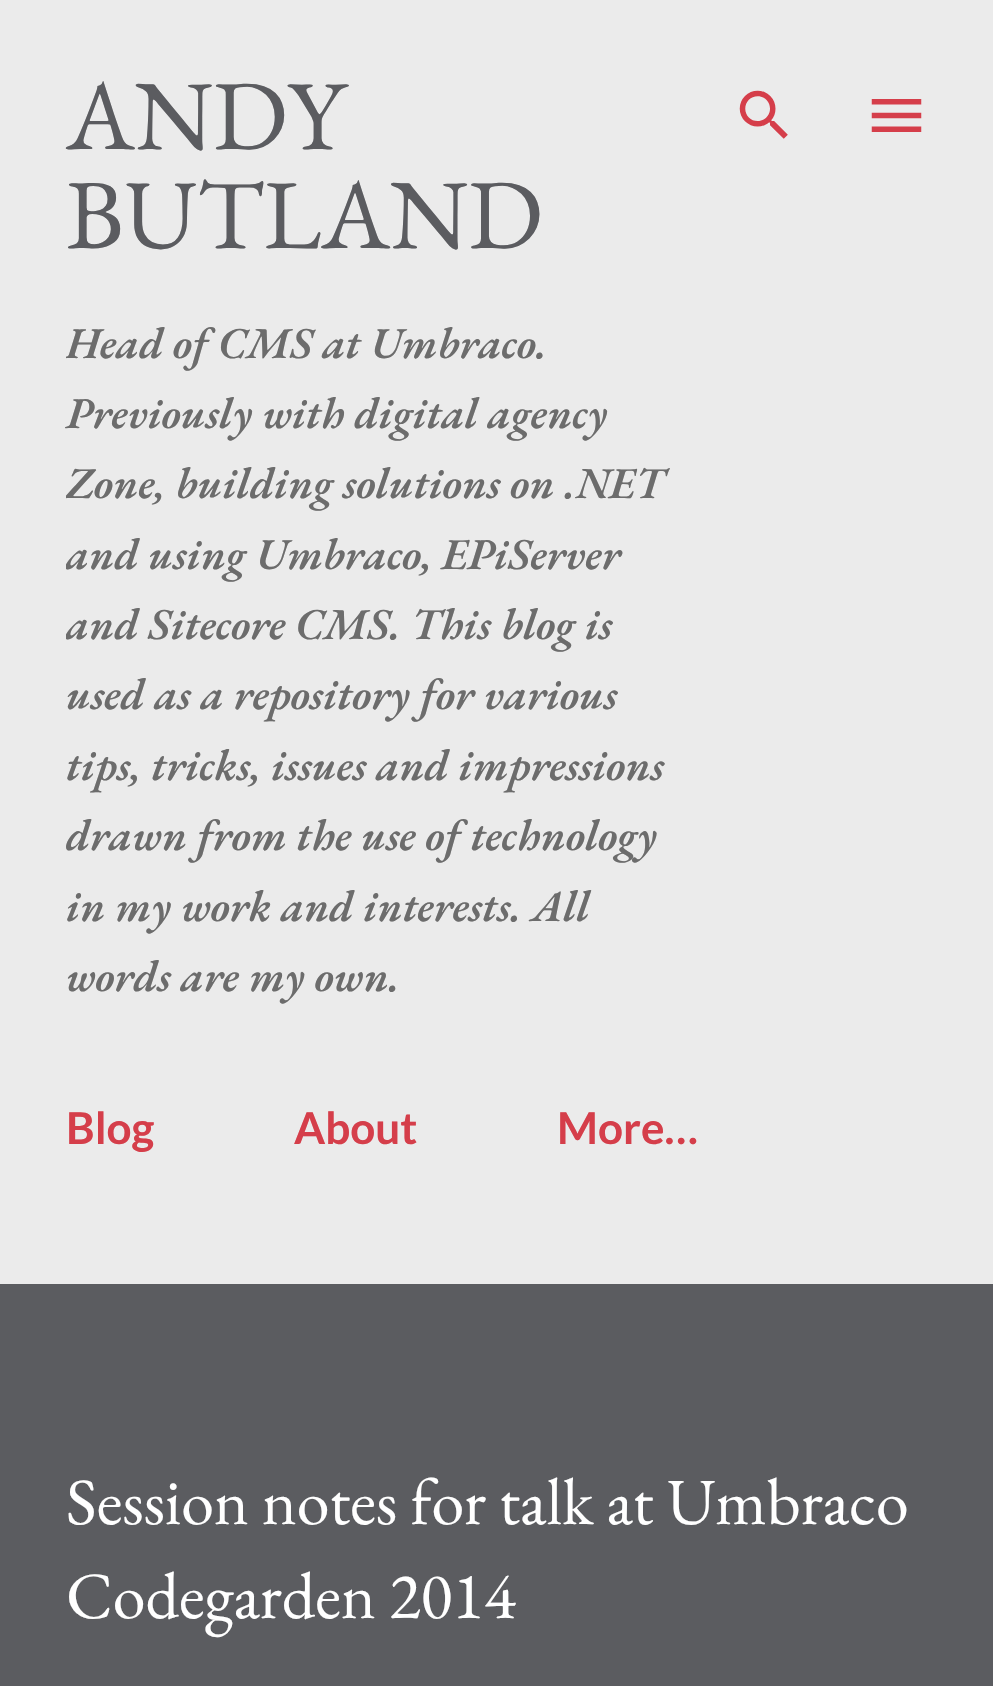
#include "include/core/SkBlurTypes.h"
#include "include/core/SkCanvas.h"
#include "include/core/SkData.h"
#include "include/core/SkFont.h"
#include "include/core/SkFontMgr.h"
#include "include/core/SkImage.h"
#include "include/core/SkMaskFilter.h"
#include "include/core/SkPaint.h"
#include "include/core/SkPathBuilder.h"
#include "include/core/SkTextBlob.h"
#include "include/effects/SkDashPathEffect.h"
#include "include/effects/SkGradientShader.h"
#include "include/utils/SkParsePath.h"

extern sk_sp<SkFontMgr> fontMgr;

void draw(SkCanvas* canvas) {
    SkPaint p;
    p.setAntiAlias(true);
    auto font = [&](const char* family, int weight, float size, bool italic = false) {
        SkFontStyle style(weight, SkFontStyle::kNormal_Width,
            italic ? SkFontStyle::kItalic_Slant : SkFontStyle::kUpright_Slant);
        SkFont result(fontMgr->matchFamilyStyle(family, style), size);
        result.setSubpixel(true);
        return result;
    };
    auto drawPhoto = [&](const char* path, float l, float t, float r, float b) {
        auto image = SkImages::DeferredFromEncodedData(SkData::MakeFromFileName(path));
        canvas->drawImageRect(image, SkRect::MakeLTRB(l, t, r, b), SkSamplingOptions());
    };
    canvas->clear(0xFFEBEBEB);
    auto font1 = font("EB Garamond", 400, 99);
    p.setColor(0xFF5B5C60);
    canvas->drawString("ANDY", 66, 149, font1, p);
    canvas->drawString("BUTLAND", 66, 248, font1, p);
    canvas->save();
    canvas->clipRect(SkRect::MakeLTRB(66, 66, 798, 1056));
    auto font2 = font("EB Garamond", 600, 44, true);
    p.setColor(0xFF6C6C6C);
    canvas->drawString("Head of CMS at Umbraco.", 66, 358, font2, p);
    canvas->restore();
    canvas->drawString("Previously with digital agency", 66, 428, font2, p);
    canvas->save();
    canvas->clipRect(SkRect::MakeLTRB(66, 66, 798, 1056));
    {
        const struct { const char* s; float x, y; } items[] = {
            {"Zone, building solutions on .NET", 66, 498},
            {"and using Umbraco, EPiServer", 66, 569},
            {"and Sitecore CMS.", 66, 639},
        };
        for (auto [s, x, y] : items) {
            canvas->drawString(s, x, y, font2, p);
        }
    }
    canvas->restore();
    {
        const struct { const char* s; float x, y; } items[] = {
            {"This blog is", 411, 639},
            {"used as a repository for various", 66, 709},
            {"tips, tricks, issues and impressions", 66, 780},
            {"drawn from the use of technology", 66, 850},
            {"in my work and interests. All", 66, 921},
            {"words are my own.", 66, 991},
        };
        for (auto [s, x, y] : items) {
            canvas->drawString(s, x, y, font2, p);
        }
    }
    drawPhoto("media/1.png", 739, 90, 788, 139);
    drawPhoto("media/2.png", 871, 99, 922, 132);
    auto font3 = font("Lato", 700, 44);
    p.setColor(0xFFD53E4A);
    {
        const struct { const char* s; float x, y; } items[] = {
            {"Blog", 66, 1144},
            {"About", 294, 1144},
            {"More…", 557, 1144},
        };
        for (auto [s, x, y] : items) {
            canvas->drawString(s, x, y, font3, p);
        }
    }
    p.setColor(0xFF5B5C60);
    canvas->drawRect(SkRect::MakeLTRB(0, 1284, 993, 1686), p);
    auto font4 = font("EB Garamond", 400, 66);
    p.setColor(0xFFFFFFFF);
    canvas->drawString("Session notes for talk at Umbraco", 66, 1524, font4, p);
    canvas->drawString("Codegarden 2014", 66, 1618, font4, p);
}
